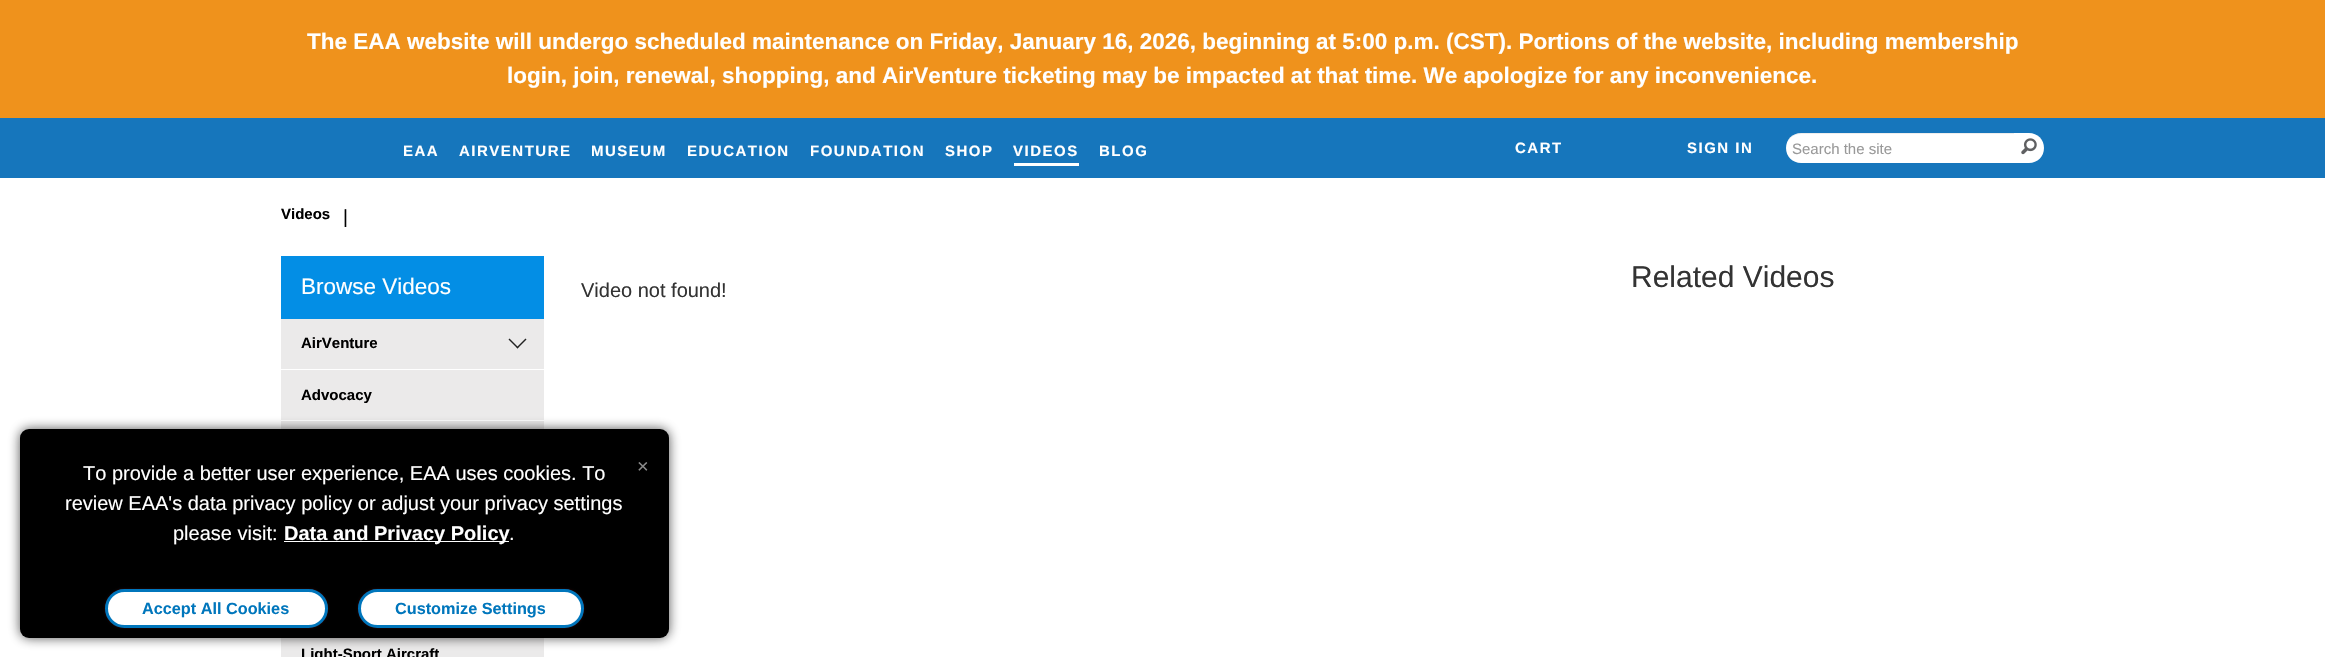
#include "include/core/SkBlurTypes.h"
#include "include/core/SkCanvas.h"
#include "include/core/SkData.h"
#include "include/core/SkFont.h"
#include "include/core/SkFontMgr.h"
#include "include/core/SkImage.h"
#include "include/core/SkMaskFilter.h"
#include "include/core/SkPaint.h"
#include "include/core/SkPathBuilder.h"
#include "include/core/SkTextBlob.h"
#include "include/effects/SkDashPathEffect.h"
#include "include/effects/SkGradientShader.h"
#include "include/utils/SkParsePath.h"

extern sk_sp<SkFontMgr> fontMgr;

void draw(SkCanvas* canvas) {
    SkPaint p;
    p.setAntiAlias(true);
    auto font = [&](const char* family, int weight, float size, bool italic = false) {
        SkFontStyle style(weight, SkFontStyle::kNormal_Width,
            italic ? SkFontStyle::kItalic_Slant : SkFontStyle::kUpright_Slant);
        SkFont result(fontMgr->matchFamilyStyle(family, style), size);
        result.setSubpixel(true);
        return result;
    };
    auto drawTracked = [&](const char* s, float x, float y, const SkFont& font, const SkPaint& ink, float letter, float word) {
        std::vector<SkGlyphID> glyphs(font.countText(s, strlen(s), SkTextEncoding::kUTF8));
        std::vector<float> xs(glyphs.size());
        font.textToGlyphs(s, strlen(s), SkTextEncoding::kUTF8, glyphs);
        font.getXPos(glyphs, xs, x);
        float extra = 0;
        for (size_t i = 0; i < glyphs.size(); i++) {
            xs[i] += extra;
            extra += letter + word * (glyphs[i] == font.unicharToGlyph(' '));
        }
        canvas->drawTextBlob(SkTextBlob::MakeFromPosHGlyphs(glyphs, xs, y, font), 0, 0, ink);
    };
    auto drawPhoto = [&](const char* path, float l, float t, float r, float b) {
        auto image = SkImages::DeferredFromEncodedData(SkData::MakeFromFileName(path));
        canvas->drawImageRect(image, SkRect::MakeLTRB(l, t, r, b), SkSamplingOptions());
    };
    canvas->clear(0xFFFFFFFF);
    p.setColor(0xFFEF921C);
    canvas->drawRect(SkRect::MakeLTRB(0, 0, 2325, 118), p);
    auto font1 = font("Liberation Sans", 700, 22.5f);
    p.setColor(0xFFFFFFFF);
    canvas->drawString("The EAA website will undergo scheduled maintenance on Friday, January 16, 2026, beginning at 5:00 p.m. (CST). Portions of the website, including membership", 307, 49, font1, p);
    canvas->drawString("login, join, renewal, shopping, and AirVenture ticketing may be impacted at that time. We apologize for any inconvenience.", 507, 83, font1, p);
    p.setColor(0xFF1676BC);
    canvas->drawRect(SkRect::MakeLTRB(0, 118, 2325, 178), p);
    auto font2 = font("Liberation Sans", 700, 15);
    p.setColor(0xFFFFFFFF);
    {
        const struct { const char* s; float x, y; } items[] = {
            {"EAA", 403, 156},
            {"AIRVENTURE", 459, 156},
            {"MUSEUM", 591, 156},
            {"EDUCATION", 687, 156},
            {"FOUNDATION", 810, 156},
            {"SHOP", 945, 156},
            {"VIDEOS", 1013, 156},
        };
        for (auto [s, x, y] : items) {
            drawTracked(s, x, y, font2, p, 1.5f, 0);
        }
    }
    canvas->drawRect(SkRect::MakeLTRB(1014, 163, 1079, 166), p);
    {
        const struct { const char* s; float x, y; } items[] = {
            {"BLOG", 1099, 156},
            {"CART", 1515, 153},
            {"SIGN IN", 1687, 153},
        };
        for (auto [s, x, y] : items) {
            drawTracked(s, x, y, font2, p, 1.5f, 0);
        }
    }
    canvas->drawPath(SkPathBuilder().moveTo(1801, 133).lineTo(2014, 133).lineTo(2014, 163).lineTo(1801, 163).cubicTo(1792.5f, 163, 1786, 156.5f, 1786, 148).cubicTo(1786, 139.5f, 1792.5f, 133, 1801, 133).close().detach(), p);
    p.setColor(0x12000000);
    canvas->drawPath(SkPathBuilder().moveTo(1801, 134).lineTo(2014, 134).lineTo(2014, 133).lineTo(1801, 133).cubicTo(1793, 133, 1786, 140, 1786, 148).cubicTo(1786, 140, 1793, 134, 1801, 134).close().detach(), p);
    auto font3 = font("Liberation Sans", 400, 15);
    p.setColor(0xFF999999);
    canvas->drawString("Search the site", 1792, 154, font3, p);
    p.setColor(0xFFFFFFFF);
    canvas->drawPath(SkPathBuilder().moveTo(2014, 133).lineTo(2029, 133).cubicTo(2037.5f, 133, 2044, 139.5f, 2044, 148).cubicTo(2044, 156.5f, 2037.5f, 163, 2029, 163).lineTo(2014, 163).close().detach(), p);
    drawPhoto("media/1.png", 2021, 138, 2037, 155);
    p.setColor(0xFF000000);
    canvas->drawString("Videos", 281, 219, font2, p);
    auto font4 = font("Liberation Sans", 400, 19);
    canvas->drawString("|", 343, 223, font4, p);
    p.setColor(0xFFEBEAEA);
    canvas->drawRect(SkRect::MakeLTRB(281, 319, 544, 657), p);
    p.setColor(0xFF038EE5);
    canvas->drawRect(SkRect::MakeLTRB(281, 256, 544, 319), p);
    auto font5 = font("Liberation Sans", 400, 22.5f);
    p.setColor(0xFFFFFFFF);
    canvas->drawString("Browse Videos", 301, 294, font5, p);
    canvas->drawRect(SkRect::MakeLTRB(281, 369, 544, 370), p);
    p.setColor(0xFF000000);
    canvas->drawString("AirVenture", 301, 348, font2, p);
    p.setColor(0xFF222222);
    canvas->drawPath(SkPathBuilder().moveTo(526.5f, 339.5f).lineTo(517.5f, 348.5f).lineTo(516.5f, 347.5f).lineTo(525.5f, 338.5f).close().detach(), p);
    canvas->drawPath(SkPathBuilder().moveTo(518.5f, 347.5f).lineTo(517.5f, 348.5f).lineTo(508.5f, 339.5f).lineTo(509.5f, 338.5f).close().detach(), p);
    p.setColor(0xFFFFFFFF);
    canvas->drawRect(SkRect::MakeLTRB(281, 420, 544, 421), p);
    p.setColor(0xFF000000);
    canvas->drawString("Advocacy", 301, 400, font2, p);
    canvas->drawString("Light-Sport Aircraft", 301, 659, font2, p);
    auto font6 = font("Liberation Sans", 400, 20);
    p.setColor(0xFF333333);
    canvas->drawString("Video not found!", 581, 297, font6, p);
    auto font7 = font("Liberation Sans", 400, 30);
    canvas->drawString("Related Videos", 1631, 287, font7, p);
    p.setColor(0xB30A0A0A);
    p.setMaskFilter(SkMaskFilter::MakeBlur(kNormal_SkBlurStyle, 6));
    canvas->drawRoundRect(SkRect::MakeLTRB(20, 429, 669, 638), 9, 9, p);
    p.setMaskFilter(nullptr);
    p.setColor(0xFF000000);
    canvas->drawRoundRect(SkRect::MakeLTRB(20, 429, 669, 638), 9, 9, p);
    p.setColor(0xFFFFFFFF);
    {
        const struct { const char* s; float x, y; } items[] = {
            {"To provide a better user experience, EAA uses cookies. To", 83, 480},
            {"review EAA's data privacy policy or adjust your privacy settings", 65, 510},
            {"please visit:", 173, 540},
        };
        for (auto [s, x, y] : items) {
            canvas->drawString(s, x, y, font6, p);
        }
    }
    canvas->drawRect(SkRect::MakeLTRB(284, 541, 509, 542), p);
    auto font8 = font("Liberation Sans", 700, 20);
    canvas->drawString("Data and Privacy Policy", 284, 540, font8, p);
    canvas->drawString(".", 509, 540, font6, p);
    p.setColor(0xFF8A8A8A);
    canvas->drawString("×", 637, 473, font6, p);
    p.setColor(0x66960A0A);
    p.setMaskFilter(SkMaskFilter::MakeBlur(kNormal_SkBlurStyle, 1));
    canvas->drawRoundRect(SkRect::MakeLTRB(105, 589, 328, 628), 19.5f, 19.5f, p);
    p.setMaskFilter(nullptr);
    p.setColor(0xFFFFFFFF);
    canvas->drawRoundRect(SkRect::MakeLTRB(106.5f, 590.5f, 326.5f, 626.5f), 18, 18, p);
    p.setStyle(SkPaint::kStroke_Style);
    p.setStrokeWidth(3);
    p.setColor(0xFF0076BC);
    canvas->drawRoundRect(SkRect::MakeLTRB(106.5f, 590.5f, 326.5f, 626.5f), 18, 18, p);
    auto font9 = font("Liberation Sans", 700, 16.25f);
    p.setStyle(SkPaint::kFill_Style);
    canvas->drawString("Accept All Cookies", 142, 614, font9, p);
    p.setColor(0x66960A0A);
    p.setMaskFilter(SkMaskFilter::MakeBlur(kNormal_SkBlurStyle, 1));
    canvas->drawRoundRect(SkRect::MakeLTRB(358, 589, 584, 628), 19.5f, 19.5f, p);
    p.setMaskFilter(nullptr);
    p.setColor(0xFFFFFFFF);
    canvas->drawRoundRect(SkRect::MakeLTRB(359.5f, 590.5f, 582.5f, 626.5f), 18, 18, p);
    p.setStyle(SkPaint::kStroke_Style);
    p.setColor(0xFF0076BC);
    canvas->drawRoundRect(SkRect::MakeLTRB(359.5f, 590.5f, 582.5f, 626.5f), 18, 18, p);
    p.setStyle(SkPaint::kFill_Style);
    canvas->drawString("Customize Settings", 395, 614, font9, p);
}
